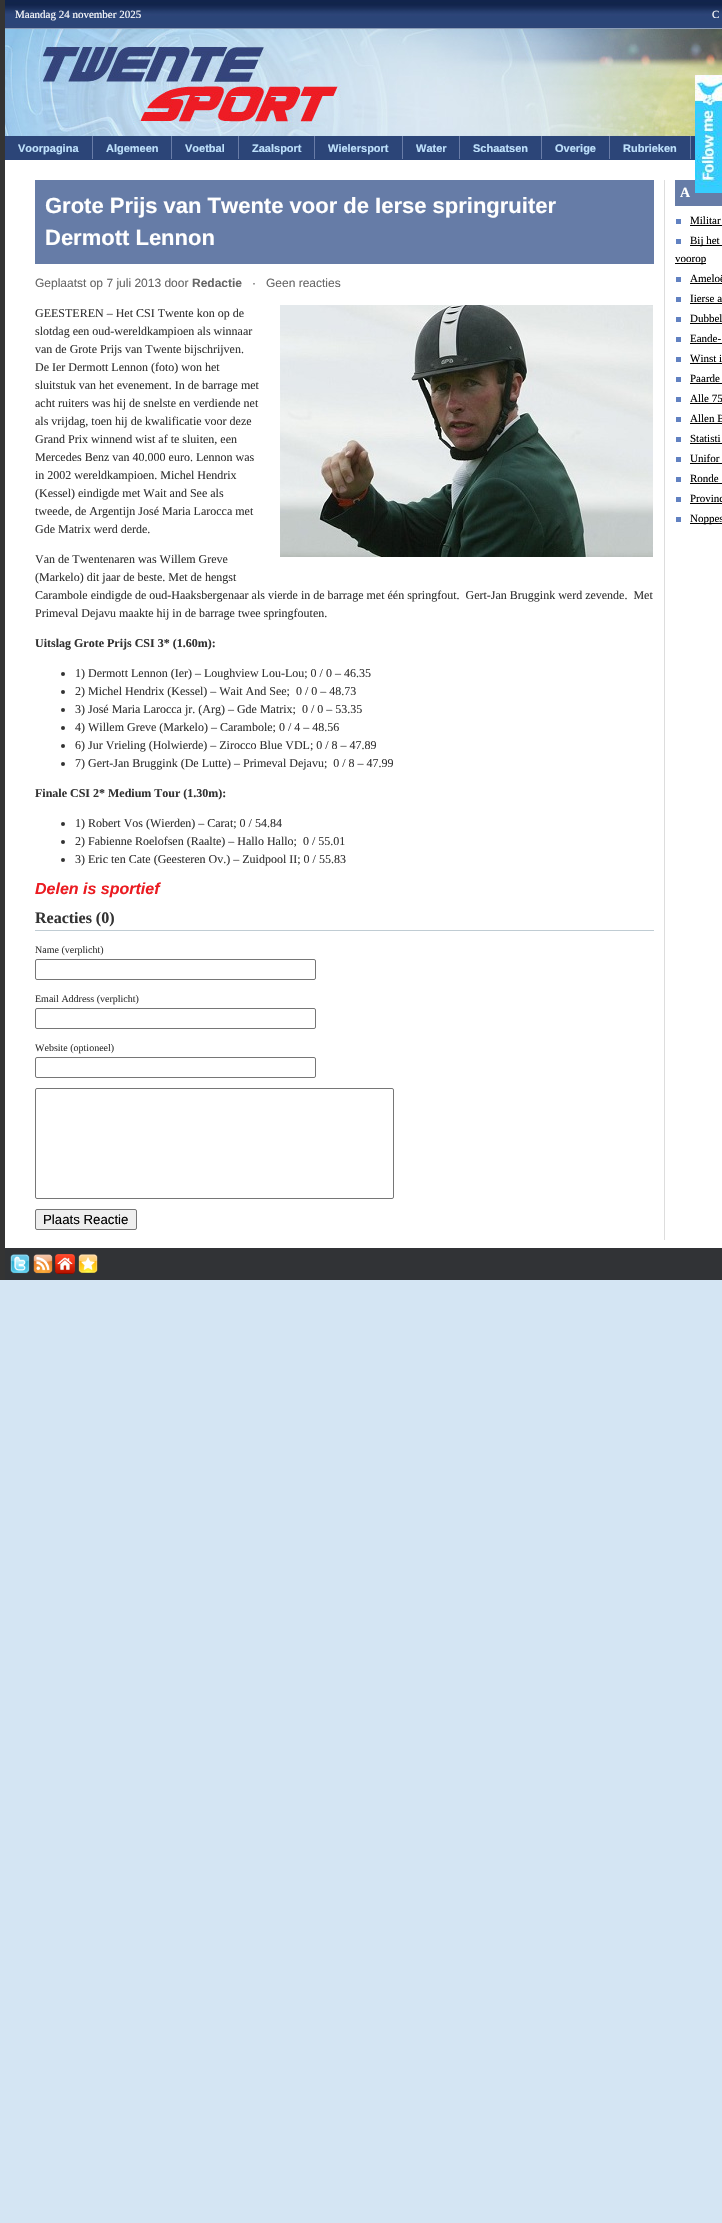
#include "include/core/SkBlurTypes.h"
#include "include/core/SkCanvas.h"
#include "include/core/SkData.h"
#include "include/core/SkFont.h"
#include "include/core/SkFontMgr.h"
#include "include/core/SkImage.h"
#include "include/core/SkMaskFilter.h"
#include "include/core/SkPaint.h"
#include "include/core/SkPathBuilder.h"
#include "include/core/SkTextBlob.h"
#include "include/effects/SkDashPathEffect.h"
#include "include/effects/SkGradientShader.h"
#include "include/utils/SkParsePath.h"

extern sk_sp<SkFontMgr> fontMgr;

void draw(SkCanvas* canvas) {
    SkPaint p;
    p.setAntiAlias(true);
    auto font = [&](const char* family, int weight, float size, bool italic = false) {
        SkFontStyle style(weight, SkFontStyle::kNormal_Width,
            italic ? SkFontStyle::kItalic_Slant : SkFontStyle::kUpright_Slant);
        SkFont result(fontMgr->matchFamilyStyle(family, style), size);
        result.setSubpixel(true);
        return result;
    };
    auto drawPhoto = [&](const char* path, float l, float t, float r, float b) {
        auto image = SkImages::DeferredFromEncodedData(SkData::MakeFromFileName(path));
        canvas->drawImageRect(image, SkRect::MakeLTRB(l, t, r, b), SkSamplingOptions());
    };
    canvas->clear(0xFFD4E5F3);
    p.setColor(0xFF343434);
    canvas->drawRect(SkRect::MakeLTRB(0, 0, 5, 1280), p);
    drawPhoto("media/1.png", 5, 0, 722, 29);
    auto font1 = font("Liberation Serif", 400, 11);
    p.setColor(0xFFFFFFFF);
    canvas->drawString("Maandag 24 november 2025", 15, 18, font1, p);
    canvas->drawString("C", 712, 18, font1, p);
    drawPhoto("media/2.png", 5, 29, 722, 136);
    p.setColor(0xFF2C4578);
    canvas->drawRect(SkRect::MakeLTRB(5, 136, 695, 160), p);
    p.setColor(0xFF697CA7);
    canvas->drawRect(SkRect::MakeLTRB(92, 136, 93, 159), p);
    auto font2 = font("Liberation Sans", 700, 11);
    p.setColor(0xFFBEE1FC);
    canvas->drawString("Voorpagina", 18, 152, font2, p);
    p.setColor(0xFF697CA7);
    canvas->drawRect(SkRect::MakeLTRB(171, 136, 172, 159), p);
    p.setColor(0xFFBEE1FC);
    canvas->drawString("Algemeen", 106, 152, font2, p);
    p.setColor(0xFF697CA7);
    canvas->drawRect(SkRect::MakeLTRB(238, 136, 239, 159), p);
    p.setColor(0xFFBEE1FC);
    canvas->drawString("Voetbal", 185, 152, font2, p);
    p.setColor(0xFF697CA7);
    canvas->drawRect(SkRect::MakeLTRB(314, 136, 315, 159), p);
    p.setColor(0xFFBEE1FC);
    canvas->drawString("Zaalsport", 252, 152, font2, p);
    p.setColor(0xFF697CA7);
    canvas->drawRect(SkRect::MakeLTRB(402, 136, 403, 159), p);
    p.setColor(0xFFBEE1FC);
    canvas->drawString("Wielersport", 328, 152, font2, p);
    p.setColor(0xFF697CA7);
    canvas->drawRect(SkRect::MakeLTRB(459, 136, 460, 159), p);
    p.setColor(0xFFBEE1FC);
    canvas->drawString("Water", 416, 152, font2, p);
    p.setColor(0xFF697CA7);
    canvas->drawRect(SkRect::MakeLTRB(541, 136, 542, 159), p);
    p.setColor(0xFFBEE1FC);
    canvas->drawString("Schaatsen", 473, 152, font2, p);
    p.setColor(0xFF697CA7);
    canvas->drawRect(SkRect::MakeLTRB(609, 136, 610, 159), p);
    p.setColor(0xFFBEE1FC);
    canvas->drawString("Overige", 555, 152, font2, p);
    p.setColor(0xFF697CA7);
    canvas->drawRect(SkRect::MakeLTRB(690, 136, 691, 159), p);
    p.setColor(0xFFBEE1FC);
    canvas->drawString("Rubrieken", 623, 152, font2, p);
    p.setColor(0xFFFFFFFF);
    canvas->drawRect(SkRect::MakeLTRB(5, 160, 722, 1248), p);
    p.setColor(0xFF667CA7);
    canvas->drawRect(SkRect::MakeLTRB(675, 180, 722, 206), p);
    drawPhoto("media/3.png", 695, 75, 722, 193);
    p.setColor(0xFFDDDDDD);
    canvas->drawRect(SkRect::MakeLTRB(664, 180, 665, 1240), p);
    p.setColor(0xFF667CA7);
    canvas->drawRect(SkRect::MakeLTRB(35, 180, 654, 264), p);
    auto font3 = font("Liberation Sans", 700, 22);
    p.setColor(0xFFFFFFFF);
    canvas->drawString("Grote Prijs van Twente voor de Ierse springruiter", 45, 213, font3, p);
    canvas->drawString("Dermott Lennon", 45, 245, font3, p);
    auto font4 = font("Liberation Sans", 400, 12);
    p.setColor(0xFF666666);
    canvas->drawString("Geplaatst op 7 juli 2013 door", 35, 287, font4, p);
    auto font5 = font("Liberation Sans", 700, 12);
    canvas->drawString("Redactie", 192, 287, font5, p);
    canvas->drawString("·   Geen reacties", 252, 287, font4, p);
    auto font6 = font("Liberation Serif", 400, 12);
    p.setColor(0xFF333333);
    canvas->drawString("GEESTEREN – Het CSI Twente kon op de", 35, 317, font6, p);
    drawPhoto("media/4.png", 280, 305, 653, 557);
    {
        const struct { const char* s; float x, y; } items[] = {
            {"slotdag een oud-wereldkampioen als winnaar", 35, 335},
            {"van de Grote Prijs van Twente bijschrijven.", 35, 353},
            {"De Ier Dermott Lennon (foto) won het", 35, 371},
            {"sluitstuk van het evenement. In de barrage met", 35, 389},
            {"acht ruiters was hij de snelste en verdiende net", 35, 407},
            {"als vrijdag, toen hij de kwalificatie voor deze", 35, 425},
            {"Grand Prix winnend wist af te sluiten, een", 35, 443},
            {"Mercedes Benz van 40.000 euro. Lennon was", 35, 461},
            {"in 2002 wereldkampioen. Michel Hendrix", 35, 479},
            {"(Kessel) eindigde met Wait and See als", 35, 497},
            {"tweede, de Argentijn José Maria Larocca met", 35, 515},
            {"Gde Matrix werd derde.", 35, 533},
            {"Van de Twentenaren was Willem Greve", 35, 563},
            {"(Markelo) dit jaar de beste. Met de hengst", 35, 581},
            {"Carambole eindigde de oud-Haaksbergenaar als vierde in de barrage met één springfout.  Gert-Jan Bruggink werd zevende.  Met", 35, 599},
            {"Primeval Dejavu maakte hij in de barrage twee springfouten.", 35, 617},
        };
        for (auto [s, x, y] : items) {
            canvas->drawString(s, x, y, font6, p);
        }
    }
    auto font7 = font("Liberation Serif", 700, 12);
    canvas->drawString("Uitslag Grote Prijs CSI 3* (1.60m):", 35, 647, font7, p);
    canvas->drawCircle(63, 674, 2, p);
    canvas->drawString("1) Dermott Lennon (Ier) – Loughview Lou-Lou; 0 / 0 – 46.35", 75, 677, font6, p);
    canvas->drawCircle(63, 692, 2, p);
    canvas->drawString("2) Michel Hendrix (Kessel) – Wait And See;  0 / 0 – 48.73", 75, 695, font6, p);
    canvas->drawCircle(63, 710, 2, p);
    canvas->drawString("3) José Maria Larocca jr. (Arg) – Gde Matrix;  0 / 0 – 53.35", 75, 713, font6, p);
    canvas->drawCircle(63, 728, 2, p);
    canvas->drawString("4) Willem Greve (Markelo) – Carambole; 0 / 4 – 48.56", 75, 731, font6, p);
    canvas->drawCircle(63, 746, 2, p);
    canvas->drawString("6) Jur Vrieling (Holwierde) – Zirocco Blue VDL; 0 / 8 – 47.89", 75, 749, font6, p);
    canvas->drawCircle(63, 764, 2, p);
    canvas->drawString("7) Gert-Jan Bruggink (De Lutte) – Primeval Dejavu;  0 / 8 – 47.99", 75, 767, font6, p);
    canvas->drawString("Finale CSI 2* Medium Tour (1.30m):", 35, 797, font7, p);
    canvas->drawCircle(63, 824, 2, p);
    canvas->drawString("1) Robert Vos (Wierden) – Carat; 0 / 54.84", 75, 827, font6, p);
    canvas->drawCircle(63, 842, 2, p);
    canvas->drawString("2) Fabienne Roelofsen (Raalte) – Hallo Hallo;  0 / 55.01", 75, 845, font6, p);
    canvas->drawCircle(63, 860, 2, p);
    canvas->drawString("3) Eric ten Cate (Geesteren Ov.) – Zuidpool II; 0 / 55.83", 75, 863, font6, p);
    auto font8 = font("Liberation Sans", 700, 16, true);
    p.setColor(0xFFEB1C22);
    canvas->drawString("Delen is sportief", 35, 894, font8, p);
    p.setColor(0xFFC0CCD3);
    canvas->drawRect(SkRect::MakeLTRB(35, 930, 654, 931), p);
    auto font9 = font("Liberation Serif", 700, 16);
    p.setColor(0xFF333333);
    canvas->drawString("Reacties (0)", 35, 923, font9, p);
    auto font10 = font("Liberation Serif", 400, 10);
    canvas->drawString("Name (verplicht)", 35, 953, font10, p);
    p.setStyle(SkPaint::kStroke_Style);
    p.setStrokeWidth(1);
    p.setColor(0xFF767676);
    canvas->drawRoundRect(SkRect::MakeLTRB(35.5f, 959.5f, 315.5f, 979.5f), 1.5f, 1.5f, p);
    p.setStyle(SkPaint::kFill_Style);
    p.setColor(0xFF333333);
    canvas->drawString("Email Address (verplicht)", 35, 1002, font10, p);
    p.setStyle(SkPaint::kStroke_Style);
    p.setColor(0xFF767676);
    canvas->drawRoundRect(SkRect::MakeLTRB(35.5f, 1008.5f, 315.5f, 1028.5f), 1.5f, 1.5f, p);
    p.setStyle(SkPaint::kFill_Style);
    p.setColor(0xFF333333);
    canvas->drawString("Website (optioneel)", 35, 1051, font10, p);
    p.setStyle(SkPaint::kStroke_Style);
    p.setColor(0xFF767676);
    canvas->drawRoundRect(SkRect::MakeLTRB(35.5f, 1057.5f, 315.5f, 1077.5f), 1.5f, 1.5f, p);
    canvas->drawRoundRect(SkRect::MakeLTRB(35.5f, 1088.5f, 393.5f, 1198.5f), 1.5f, 1.5f, p);
    p.setStyle(SkPaint::kFill_Style);
    p.setColor(0xFFEFEFEF);
    canvas->drawRoundRect(SkRect::MakeLTRB(35.5f, 1209.5f, 136.5f, 1229.5f), 1.5f, 1.5f, p);
    p.setStyle(SkPaint::kStroke_Style);
    p.setColor(0xFF767676);
    canvas->drawRoundRect(SkRect::MakeLTRB(35.5f, 1209.5f, 136.5f, 1229.5f), 1.5f, 1.5f, p);
    auto font11 = font("Liberation Sans", 400, 13.25f);
    p.setStyle(SkPaint::kFill_Style);
    p.setColor(0xFF000000);
    canvas->drawString("Plaats Reactie", 43, 1224, font11, p);
    auto font12 = font("Liberation Serif", 700, 14);
    p.setColor(0xFFFFFFFF);
    canvas->drawString("A", 680, 197, font12, p);
    p.setColor(0xFF000000);
    canvas->drawString("Militar", 690, 224, font1, p);
    {
        const struct { float l, t, r, b; SkColor color; } items[] = {
            {676, 219, 681, 224, 0xFF6181C1},
            {690, 225, 722, 226, 0xFF000000},
            {690, 245, 722, 246, 0xFF000000},
        };
        for (auto [l, t, r, b, color] : items) {
            p.setColor(color);
            canvas->drawRect(SkRect::MakeLTRB(l, t, r, b), p);
        }
    }
    canvas->drawString("Bij het", 690, 244, font1, p);
    p.setColor(0xFF6181C1);
    canvas->drawRect(SkRect::MakeLTRB(676, 239, 681, 244), p);
    p.setColor(0xFF000000);
    canvas->drawRect(SkRect::MakeLTRB(675, 263, 706, 264), p);
    canvas->drawString("voorop", 675, 262, font1, p);
    canvas->drawString("Ameloë", 690, 282, font1, p);
    p.setColor(0xFF6181C1);
    canvas->drawRect(SkRect::MakeLTRB(676, 277, 681, 282), p);
    p.setColor(0xFF000000);
    canvas->drawRect(SkRect::MakeLTRB(690, 283, 722, 284), p);
    canvas->drawString("Iierse a", 690, 302, font1, p);
    p.setColor(0xFF6181C1);
    canvas->drawRect(SkRect::MakeLTRB(676, 297, 681, 302), p);
    p.setColor(0xFF000000);
    canvas->drawRect(SkRect::MakeLTRB(690, 303, 722, 304), p);
    canvas->drawString("Dubbel", 690, 322, font1, p);
    p.setColor(0xFF6181C1);
    canvas->drawRect(SkRect::MakeLTRB(676, 317, 681, 322), p);
    p.setColor(0xFF000000);
    canvas->drawRect(SkRect::MakeLTRB(690, 323, 722, 324), p);
    canvas->drawString("Eande-", 690, 342, font1, p);
    p.setColor(0xFF6181C1);
    canvas->drawRect(SkRect::MakeLTRB(676, 337, 681, 342), p);
    p.setColor(0xFF000000);
    canvas->drawRect(SkRect::MakeLTRB(690, 343, 722, 344), p);
    canvas->drawString("Winst i", 690, 362, font1, p);
    p.setColor(0xFF6181C1);
    canvas->drawRect(SkRect::MakeLTRB(676, 357, 681, 362), p);
    p.setColor(0xFF000000);
    canvas->drawRect(SkRect::MakeLTRB(690, 363, 722, 364), p);
    canvas->drawString("Paarde", 690, 382, font1, p);
    p.setColor(0xFF6181C1);
    canvas->drawRect(SkRect::MakeLTRB(676, 377, 681, 382), p);
    p.setColor(0xFF000000);
    canvas->drawRect(SkRect::MakeLTRB(690, 383, 722, 384), p);
    canvas->drawString("Alle 75", 690, 402, font1, p);
    p.setColor(0xFF6181C1);
    canvas->drawRect(SkRect::MakeLTRB(676, 397, 681, 402), p);
    p.setColor(0xFF000000);
    canvas->drawRect(SkRect::MakeLTRB(690, 403, 722, 404), p);
    canvas->drawString("Allen B", 690, 422, font1, p);
    p.setColor(0xFF6181C1);
    canvas->drawRect(SkRect::MakeLTRB(676, 417, 681, 422), p);
    p.setColor(0xFF000000);
    canvas->drawRect(SkRect::MakeLTRB(690, 423, 722, 424), p);
    canvas->drawString("Statisti", 690, 442, font1, p);
    p.setColor(0xFF6181C1);
    canvas->drawRect(SkRect::MakeLTRB(676, 437, 681, 442), p);
    p.setColor(0xFF000000);
    canvas->drawRect(SkRect::MakeLTRB(690, 443, 722, 444), p);
    canvas->drawString("Unifor", 690, 462, font1, p);
    p.setColor(0xFF6181C1);
    canvas->drawRect(SkRect::MakeLTRB(676, 457, 681, 462), p);
    p.setColor(0xFF000000);
    canvas->drawRect(SkRect::MakeLTRB(690, 463, 722, 464), p);
    canvas->drawString("Ronde", 690, 482, font1, p);
    p.setColor(0xFF6181C1);
    canvas->drawRect(SkRect::MakeLTRB(676, 477, 681, 482), p);
    p.setColor(0xFF000000);
    canvas->drawRect(SkRect::MakeLTRB(690, 483, 722, 484), p);
    canvas->drawString("Provinc", 690, 502, font1, p);
    {
        const struct { float l, t, r, b; SkColor color; } items[] = {
            {676, 497, 681, 502, 0xFF6181C1},
            {690, 503, 722, 504, 0xFF000000},
            {690, 523, 722, 524, 0xFF000000},
        };
        for (auto [l, t, r, b, color] : items) {
            p.setColor(color);
            canvas->drawRect(SkRect::MakeLTRB(l, t, r, b), p);
        }
    }
    canvas->drawString("Noppes", 690, 522, font1, p);
    p.setColor(0xFF6181C1);
    canvas->drawRect(SkRect::MakeLTRB(676, 517, 681, 522), p);
    p.setColor(0xFF313336);
    canvas->drawRect(SkRect::MakeLTRB(5, 1248, 722, 1280), p);
    drawPhoto("media/5.png", 10, 1254, 30, 1274);
    drawPhoto("media/6.png", 33, 1254, 53, 1274);
    drawPhoto("media/7.png", 55, 1254, 75, 1274);
    drawPhoto("media/8.png", 78, 1254, 98, 1273);
}
